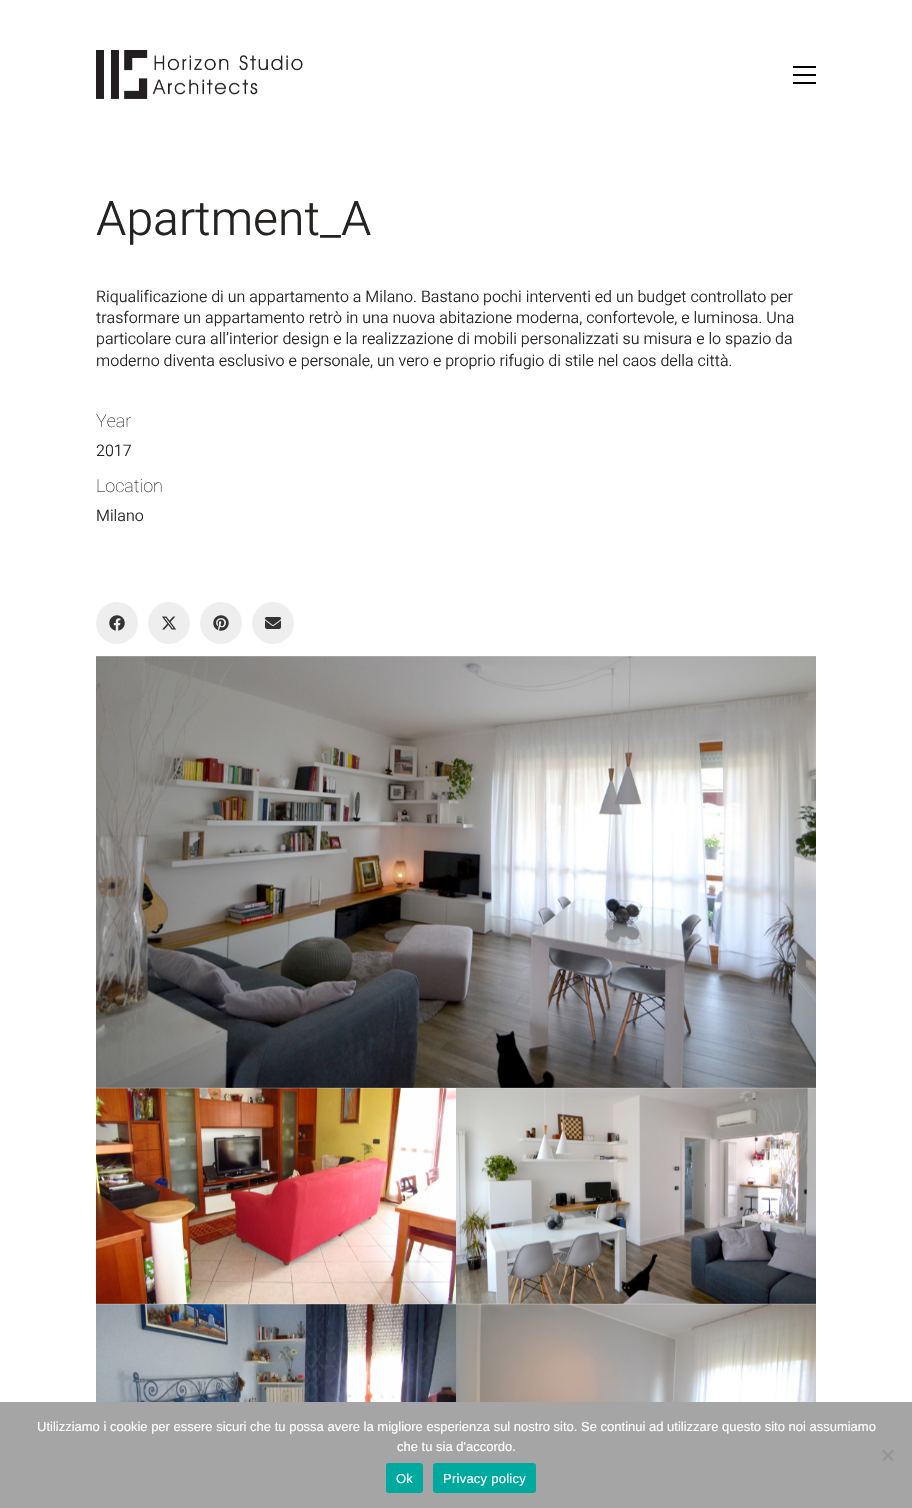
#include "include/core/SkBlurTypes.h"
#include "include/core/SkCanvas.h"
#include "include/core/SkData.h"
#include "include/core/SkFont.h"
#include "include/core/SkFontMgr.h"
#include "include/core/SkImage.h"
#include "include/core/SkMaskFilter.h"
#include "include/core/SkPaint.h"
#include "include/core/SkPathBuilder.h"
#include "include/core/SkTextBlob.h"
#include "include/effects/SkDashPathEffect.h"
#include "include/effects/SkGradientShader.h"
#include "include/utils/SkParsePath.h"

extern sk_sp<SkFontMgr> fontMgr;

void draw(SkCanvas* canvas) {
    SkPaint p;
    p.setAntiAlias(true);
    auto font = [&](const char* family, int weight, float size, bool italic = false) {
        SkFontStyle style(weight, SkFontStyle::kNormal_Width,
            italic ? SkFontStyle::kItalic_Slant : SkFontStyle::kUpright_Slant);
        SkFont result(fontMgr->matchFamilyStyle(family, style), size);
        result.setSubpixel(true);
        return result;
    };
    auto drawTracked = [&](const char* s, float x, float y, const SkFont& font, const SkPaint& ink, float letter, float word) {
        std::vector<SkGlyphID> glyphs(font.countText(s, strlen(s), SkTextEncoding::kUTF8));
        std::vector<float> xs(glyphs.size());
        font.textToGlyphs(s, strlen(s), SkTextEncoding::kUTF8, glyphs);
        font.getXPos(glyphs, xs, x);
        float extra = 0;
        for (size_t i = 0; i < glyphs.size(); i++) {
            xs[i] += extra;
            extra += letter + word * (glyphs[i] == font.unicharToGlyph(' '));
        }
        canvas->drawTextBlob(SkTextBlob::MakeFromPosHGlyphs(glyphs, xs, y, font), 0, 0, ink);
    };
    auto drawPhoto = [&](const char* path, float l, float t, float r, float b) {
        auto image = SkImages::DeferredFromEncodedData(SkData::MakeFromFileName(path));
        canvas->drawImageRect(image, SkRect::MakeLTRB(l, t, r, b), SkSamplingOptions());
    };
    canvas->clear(0xFFFFFFFF);
    drawPhoto("media/1.png", 96, 50, 303, 99);
    {
        const struct { float l, t, r, b; SkColor color; } items[] = {
            {793, 66, 816, 68, 0xFF000000},
            {793, 74, 816, 76, 0xFF000000},
            {793, 82, 816, 84, 0xFF000000},
        };
        for (auto [l, t, r, b, color] : items) {
            p.setColor(color);
            canvas->drawRect(SkRect::MakeLTRB(l, t, r, b), p);
        }
    }
    auto font1 = font("Heebo", 300, 48);
    p.setColor(0xFF242321);
    canvas->drawString("Apartment_A", 96, 235, font1, p);
    auto font2 = font("Heebo", 300, 16);
    {
        const struct { const char* s; float x, y; } items[] = {
            {"Riqualificazione di un appartamento a Milano. Bastano pochi interventi ed un budget controllato per", 96, 302},
            {"trasformare un appartamento retrò in una nuova abitazione moderna, confortevole, e luminosa. Una", 96, 323},
            {"particolare cura all’interior design e la realizzazione di mobili personalizzati su misura e lo spazio da", 96, 344},
            {"moderno diventa esclusivo e personale, un vero e proprio rifugio di stile nel caos della città.", 96, 366},
        };
        for (auto [s, x, y] : items) {
            canvas->drawString(s, x, y, font2, p);
        }
    }
    auto font3 = font("Heebo", 100, 18);
    canvas->drawString("Year", 96, 427, font3, p);
    canvas->drawString("2017", 96, 456, font2, p);
    canvas->drawString("Location", 96, 492, font3, p);
    canvas->drawString("Milano", 96, 521, font2, p);
    p.setColor(0xFFEEEEEE);
    canvas->drawCircle(117, 623, 21, p);
    drawPhoto("media/2.png", 109, 615, 125, 631);
    canvas->drawCircle(169, 623, 21, p);
    drawPhoto("media/3.png", 162, 616, 177, 630);
    canvas->drawCircle(221, 623, 21, p);
    drawPhoto("media/4.png", 213, 615, 229, 631);
    canvas->drawCircle(273, 623, 21, p);
    drawPhoto("media/5.png", 265, 617, 281, 629);
    drawPhoto("media/6.png", 96, 656, 816, 1088);
    drawPhoto("media/7.png", 96, 1088, 456, 1304);
    drawPhoto("media/8.png", 456, 1088, 816, 1304);
    drawPhoto("media/9.png", 96, 1304, 456, 1402);
    drawPhoto("media/10.png", 456, 1304, 816, 1402);
    p.setColor(0xFFA5A5A5);
    canvas->drawRect(SkRect::MakeLTRB(0, 1402, 912, 1508), p);
    auto font4 = font("Liberation Sans", 400, 13);
    p.setColor(0xFFFFFFFF);
    canvas->drawString("Utilizziamo i cookie per essere sicuri che tu possa avere la migliore esperienza sul nostro sito. Se continui ad utilizzare questo sito noi assumiamo", 37, 1431, font4, p);
    canvas->drawString("che tu sia d'accordo.", 397, 1451, font4, p);
    p.setColor(0xFF939393);
    canvas->drawPath(SkPathBuilder().moveTo(892.5f, 1449.5f).lineTo(894, 1451).lineTo(883.5f, 1461.5f).lineTo(882, 1460).close().detach(), p);
    canvas->drawPath(SkPathBuilder().moveTo(882, 1451).lineTo(883.5f, 1449.5f).lineTo(894, 1460).lineTo(892.5f, 1461.5f).close().detach(), p);
    p.setColor(0xFF00A99D);
    canvas->drawRoundRect(SkRect::MakeLTRB(386, 1463, 423, 1493), 3, 3, p);
    p.setColor(0xFFFFFFFF);
    drawTracked("Ok", 396, 1483, font4, p, 0.25f, 0);
    p.setColor(0xFF00A99D);
    canvas->drawRoundRect(SkRect::MakeLTRB(433, 1463, 536, 1493), 3, 3, p);
    p.setColor(0xFFFFFFFF);
    drawTracked("Privacy policy", 443, 1483, font4, p, 0.25f, 0);
}
